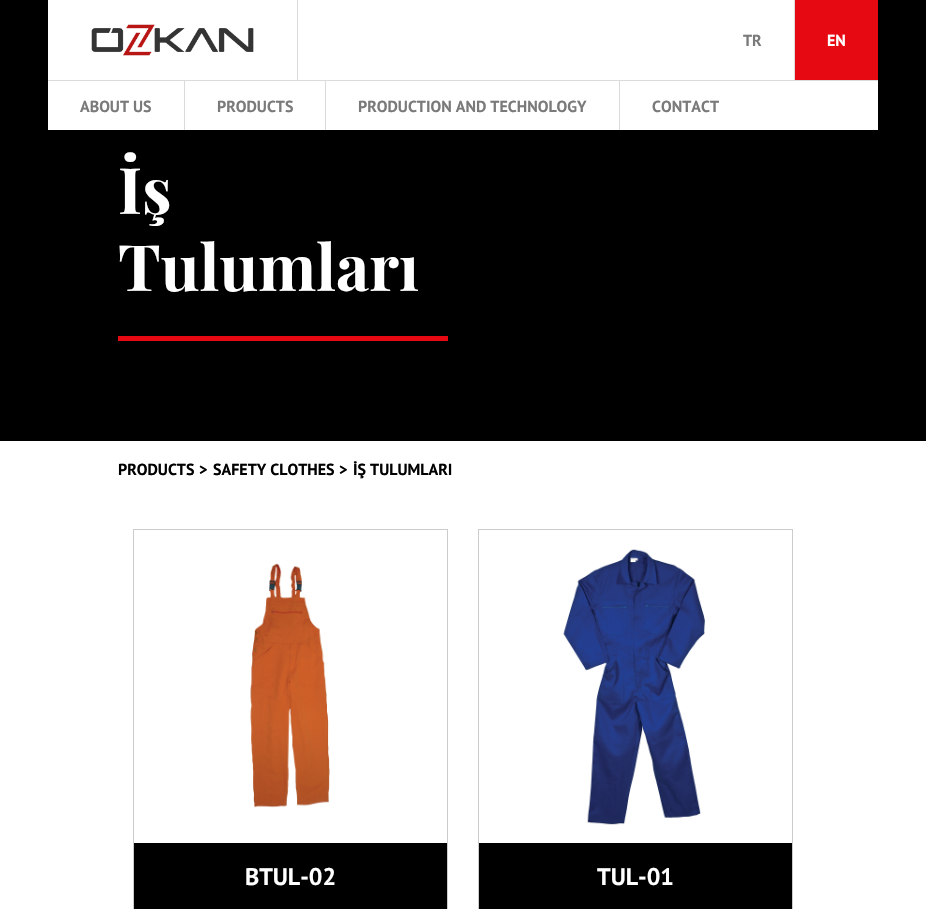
#include "include/core/SkBlurTypes.h"
#include "include/core/SkCanvas.h"
#include "include/core/SkData.h"
#include "include/core/SkFont.h"
#include "include/core/SkFontMgr.h"
#include "include/core/SkImage.h"
#include "include/core/SkMaskFilter.h"
#include "include/core/SkPaint.h"
#include "include/core/SkPathBuilder.h"
#include "include/core/SkTextBlob.h"
#include "include/effects/SkDashPathEffect.h"
#include "include/effects/SkGradientShader.h"
#include "include/utils/SkParsePath.h"

extern sk_sp<SkFontMgr> fontMgr;

void draw(SkCanvas* canvas) {
    SkPaint p;
    p.setAntiAlias(true);
    auto font = [&](const char* family, int weight, float size, bool italic = false) {
        SkFontStyle style(weight, SkFontStyle::kNormal_Width,
            italic ? SkFontStyle::kItalic_Slant : SkFontStyle::kUpright_Slant);
        SkFont result(fontMgr->matchFamilyStyle(family, style), size);
        result.setSubpixel(true);
        return result;
    };
    auto drawPhoto = [&](const char* path, float l, float t, float r, float b) {
        auto image = SkImages::DeferredFromEncodedData(SkData::MakeFromFileName(path));
        canvas->drawImageRect(image, SkRect::MakeLTRB(l, t, r, b), SkSamplingOptions());
    };
    canvas->clear(0xFF000000);
    p.setColor(0xFFFFFFFF);
    canvas->drawRect(SkRect::MakeLTRB(48, 0, 794, 80), p);
    p.setColor(0xFFDBDBDB);
    canvas->drawRect(SkRect::MakeLTRB(297, 0, 298, 80), p);
    drawPhoto("media/1.png", 91, 24, 254, 56);
    canvas->drawRect(SkRect::MakeLTRB(794, 0, 795, 80), p);
    auto font1 = font("PT Sans", 700, 16);
    p.setColor(0xFF7A7A7A);
    canvas->drawString("TR", 743, 46, font1, p);
    p.setColor(0xFFE70911);
    canvas->drawRect(SkRect::MakeLTRB(795, 0, 878, 80), p);
    p.setColor(0xFFFFFFFF);
    canvas->drawString("EN", 827, 46, font1, p);
    {
        const struct { float l, t, r, b; SkColor color; } items[] = {
            {48, 81, 878, 130, 0xFFFFFFFF},
            {48, 80, 878, 81, 0xFFDBDBDB},
            {184, 81, 185, 130, 0xFFDBDBDB},
        };
        for (auto [l, t, r, b, color] : items) {
            p.setColor(color);
            canvas->drawRect(SkRect::MakeLTRB(l, t, r, b), p);
        }
    }
    p.setColor(0xFF7A7A7A);
    canvas->drawString("ABOUT US", 80, 112, font1, p);
    p.setColor(0xFFDBDBDB);
    canvas->drawRect(SkRect::MakeLTRB(325, 81, 326, 130), p);
    p.setColor(0xFF7A7A7A);
    canvas->drawString("PRODUCTS", 217, 112, font1, p);
    p.setColor(0xFFDBDBDB);
    canvas->drawRect(SkRect::MakeLTRB(619, 81, 620, 130), p);
    p.setColor(0xFF7A7A7A);
    canvas->drawString("PRODUCTION AND TECHNOLOGY", 358, 112, font1, p);
    canvas->drawString("CONTACT", 652, 112, font1, p);
    auto font2 = font("Playfair Display", 700, 64);
    p.setColor(0xFFFFFFFF);
    canvas->drawString("İş", 118, 214, font2, p);
    canvas->drawString("Tulumları", 118, 291, font2, p);
    p.setColor(0xFFE70911);
    canvas->drawRect(SkRect::MakeLTRB(118, 336, 448, 341), p);
    p.setColor(0xFFFFFFFF);
    canvas->drawRect(SkRect::MakeLTRB(0, 441, 926, 909), p);
    p.setColor(0xFF000000);
    {
        const struct { const char* s; float x, y; } items[] = {
            {"PRODUCTS", 118, 475},
            {">", 199, 475},
            {"SAFETY CLOTHES", 213, 475},
            {">", 339, 475},
            {"İŞ TULUMLARI", 353, 475},
        };
        for (auto [s, x, y] : items) {
            canvas->drawString(s, x, y, font1, p);
        }
    }
    p.setStyle(SkPaint::kStroke_Style);
    p.setStrokeWidth(1);
    p.setColor(0xFFCCCCCC);
    canvas->drawRect(SkRect::MakeLTRB(133.5f, 529.5f, 447.5f, 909.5f), p);
    drawPhoto("media/2.png", 250, 563, 330, 808);
    p.setStyle(SkPaint::kFill_Style);
    p.setColor(0xFF000000);
    canvas->drawRect(SkRect::MakeLTRB(134, 843, 447, 909), p);
    auto font3 = font("PT Sans", 700, 24);
    p.setColor(0xFFFFFFFF);
    canvas->drawString("BTUL-02", 245, 885, font3, p);
    p.setStyle(SkPaint::kStroke_Style);
    p.setColor(0xFFCCCCCC);
    canvas->drawRect(SkRect::MakeLTRB(478.5f, 529.5f, 792.5f, 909.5f), p);
    drawPhoto("media/3.png", 563, 549, 705, 825);
    p.setStyle(SkPaint::kFill_Style);
    p.setColor(0xFF000000);
    canvas->drawRect(SkRect::MakeLTRB(479, 843, 792, 909), p);
    p.setColor(0xFFFFFFFF);
    canvas->drawString("TUL-01", 597, 885, font3, p);
}
